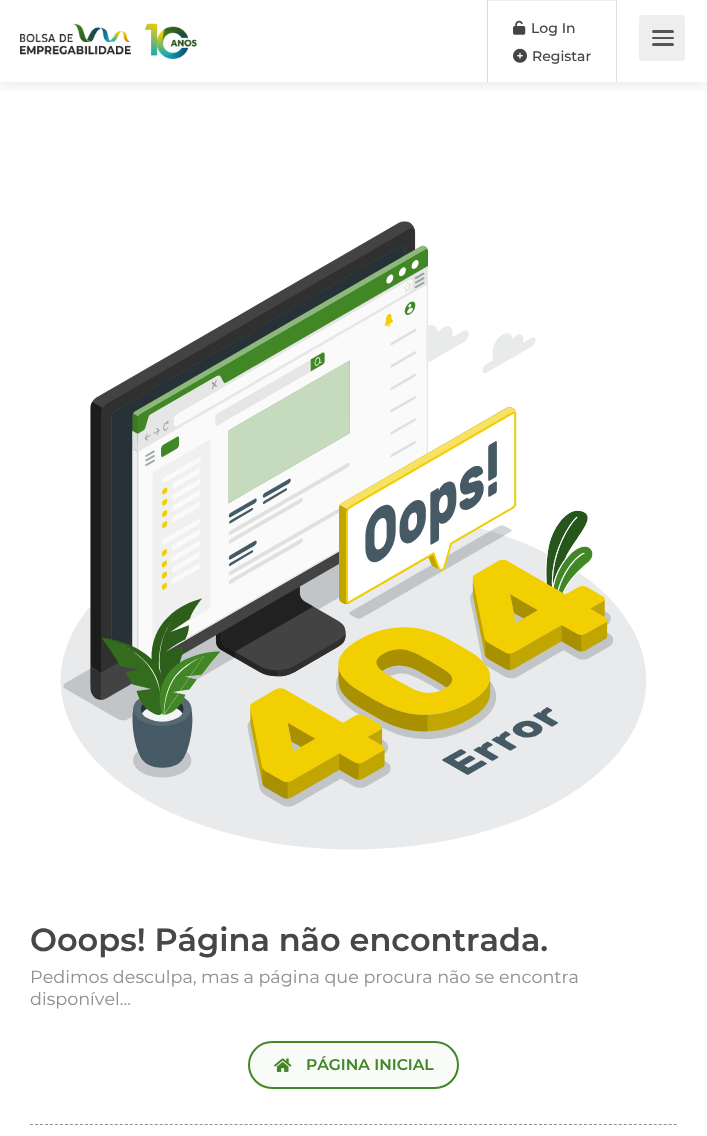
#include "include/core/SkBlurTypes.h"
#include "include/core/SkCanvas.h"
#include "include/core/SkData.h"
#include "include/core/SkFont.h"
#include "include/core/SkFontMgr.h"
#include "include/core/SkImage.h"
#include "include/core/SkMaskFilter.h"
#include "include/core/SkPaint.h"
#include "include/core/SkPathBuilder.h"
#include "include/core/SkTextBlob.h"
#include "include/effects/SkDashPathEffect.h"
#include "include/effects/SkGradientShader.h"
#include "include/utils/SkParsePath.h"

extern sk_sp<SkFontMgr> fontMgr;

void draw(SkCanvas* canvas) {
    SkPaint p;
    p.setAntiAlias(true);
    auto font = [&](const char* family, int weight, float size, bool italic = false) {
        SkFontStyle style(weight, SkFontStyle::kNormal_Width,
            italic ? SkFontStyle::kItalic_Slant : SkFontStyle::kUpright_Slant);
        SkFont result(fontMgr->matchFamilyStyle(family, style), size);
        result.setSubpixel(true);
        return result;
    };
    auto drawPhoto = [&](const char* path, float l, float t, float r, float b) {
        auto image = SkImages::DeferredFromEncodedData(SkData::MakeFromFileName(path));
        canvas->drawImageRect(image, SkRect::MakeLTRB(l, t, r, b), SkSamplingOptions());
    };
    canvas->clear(0xFFFFFFFF);
    canvas->save();
    canvas->clipRect(SkRect::MakeLTRB(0, 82, 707, 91));
    p.setColor(0x1F000000);
    p.setMaskFilter(SkMaskFilter::MakeBlur(kNormal_SkBlurStyle, 9));
    canvas->drawRect(SkRect::MakeLTRB(0, 0, 707, 82), p);
    p.setMaskFilter(nullptr);
    canvas->restore();
    drawPhoto("media/1.png", 20, 23, 197, 59);
    p.setColor(0xFFEEEEEE);
    canvas->drawPath(SkPathBuilder().moveTo(487, 0).lineTo(617, 0).lineTo(616, 1).lineTo(488, 1).close().detach(), p);
    p.setColor(0xFFE0E0E0);
    canvas->drawRect(SkRect::MakeLTRB(616, 0, 617, 82), p);
    p.setColor(0x26000000);
    canvas->drawPath(SkPathBuilder().moveTo(487, 82).lineTo(487, 0).lineTo(488, 1).lineTo(488, 82).close().detach(), p);
    drawPhoto("media/2.png", 513, 20, 526, 35);
    auto font1 = font("Montserrat", 500, 14);
    p.setColor(0xFF474747);
    canvas->drawString("Log In", 531, 33, font1, p);
    drawPhoto("media/3.png", 513, 48, 527, 63);
    canvas->drawString("Registar", 532, 61, font1, p);
    p.setColor(0xFFEEEEEE);
    canvas->drawRoundRect(SkRect::MakeLTRB(639, 15, 685, 61), 4, 4, p);
    p.setColor(0xFF555555);
    canvas->drawRoundRect(SkRect::MakeLTRB(652, 43, 674, 46), 1.5f, 1.5f, p);
    canvas->drawRoundRect(SkRect::MakeLTRB(652, 30, 674, 33), 1.5f, 1.5f, p);
    canvas->drawRoundRect(SkRect::MakeLTRB(652, 37, 674, 39), 1, 1, p);
    drawPhoto("media/4.png", 60, 221, 647, 850);
    auto font2 = font("Montserrat", 600, 32);
    p.setColor(0xFF474747);
    canvas->drawString("Ooops! Página não encontrada.", 30, 951, font2, p);
    auto font3 = font("Montserrat", 400, 17.6f);
    p.setColor(0xFF919191);
    canvas->drawString("Pedimos desculpa, mas a página que procura não se encontra", 30, 983, font3, p);
    canvas->drawString("disponível...", 30, 1005, font3, p);
    p.setColor(0xFFF9FBF8);
    canvas->drawRoundRect(SkRect::MakeLTRB(249, 1042, 458, 1088), 23, 23, p);
    p.setStyle(SkPaint::kStroke_Style);
    p.setStrokeWidth(2);
    p.setColor(0xFF418726);
    canvas->drawRoundRect(SkRect::MakeLTRB(249, 1042, 458, 1088), 23, 23, p);
    drawPhoto("media/5.png", 274, 1058, 292, 1072);
    auto font4 = font("Montserrat", 600, 15.5f);
    p.setStyle(SkPaint::kFill_Style);
    canvas->drawString("PÁGINA INICIAL", 306, 1070, font4, p);
    p.setStyle(SkPaint::kStroke_Style);
    p.setStrokeWidth(1);
    p.setColor(0xFF919191);
    p.setPathEffect(SkDashPathEffect::Make({{3, 1.99f}}, 0));
    canvas->drawPath(SkPathBuilder().moveTo(30, 1124.5f).lineTo(677, 1124.5f).detach(), p);
    p.setPathEffect(nullptr);
}
